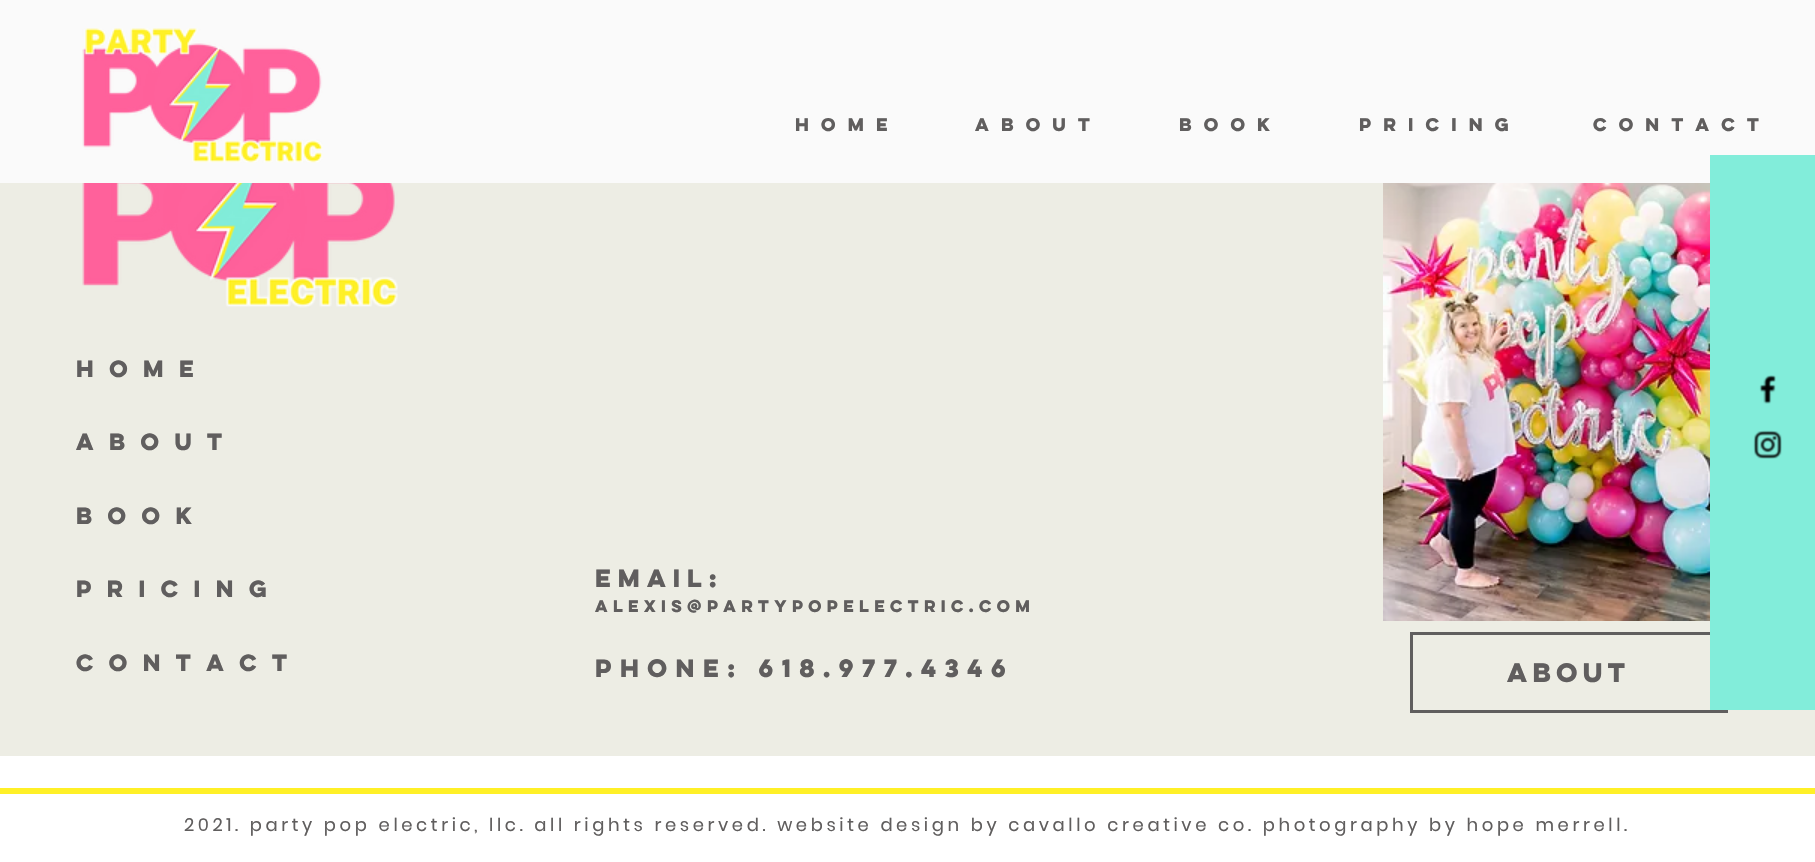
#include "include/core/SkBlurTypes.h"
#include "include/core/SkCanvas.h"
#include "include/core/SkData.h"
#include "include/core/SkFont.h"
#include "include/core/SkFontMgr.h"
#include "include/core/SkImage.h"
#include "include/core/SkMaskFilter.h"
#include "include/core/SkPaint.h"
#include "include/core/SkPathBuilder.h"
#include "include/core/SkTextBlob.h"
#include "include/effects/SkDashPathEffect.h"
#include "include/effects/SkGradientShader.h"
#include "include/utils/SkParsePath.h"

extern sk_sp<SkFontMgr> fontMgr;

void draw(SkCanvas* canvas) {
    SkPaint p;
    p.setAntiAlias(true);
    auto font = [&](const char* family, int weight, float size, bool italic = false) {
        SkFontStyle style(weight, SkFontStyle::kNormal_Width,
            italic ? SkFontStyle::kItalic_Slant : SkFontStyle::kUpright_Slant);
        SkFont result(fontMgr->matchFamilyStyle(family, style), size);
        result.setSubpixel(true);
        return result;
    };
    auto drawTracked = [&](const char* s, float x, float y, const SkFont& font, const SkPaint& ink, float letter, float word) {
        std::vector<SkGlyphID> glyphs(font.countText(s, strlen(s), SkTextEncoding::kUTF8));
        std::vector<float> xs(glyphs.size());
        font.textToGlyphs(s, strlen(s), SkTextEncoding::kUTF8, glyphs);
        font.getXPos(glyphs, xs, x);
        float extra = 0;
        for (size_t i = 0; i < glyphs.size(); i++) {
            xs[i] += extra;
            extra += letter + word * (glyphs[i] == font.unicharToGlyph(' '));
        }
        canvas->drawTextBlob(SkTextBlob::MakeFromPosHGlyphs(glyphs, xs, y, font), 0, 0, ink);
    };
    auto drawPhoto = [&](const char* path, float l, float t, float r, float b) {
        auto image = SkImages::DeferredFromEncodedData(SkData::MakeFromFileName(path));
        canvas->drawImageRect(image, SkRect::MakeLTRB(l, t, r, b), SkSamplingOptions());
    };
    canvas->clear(0xFFFFFFFF);
    p.setColor(0xFFFAFAFA);
    canvas->drawRect(SkRect::MakeLTRB(0, 0, 1815, 183), p);
    drawPhoto("media/1.png", 82, 28, 323, 163);
    auto font1 = font("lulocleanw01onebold", 700, 16.5f);
    p.setColor(0xFF605E5E);
    {
        const struct { const char* s; float x, y; } items[] = {
            {"H O M E", 795, 131},
            {"A B O U T", 975, 131},
            {"B O O K", 1179, 131},
            {"P R I C I N G", 1359, 131},
            {"C O N T A C T", 1593, 131},
        };
        for (auto [s, x, y] : items) {
            canvas->drawString(s, x, y, font1, p);
        }
    }
    p.setColor(0xFFEDEDE4);
    canvas->drawRect(SkRect::MakeLTRB(0, 183, 1815, 756), p);
    drawPhoto("media/2.png", 82, 183, 398, 308);
    auto font2 = font("lulocleanw01onebold", 700, 21);
    p.setColor(0xFF605E5E);
    {
        const struct { const char* s; float x, y; } items[] = {
            {"H O M E", 76, 377},
            {"A B O U T", 76, 450},
            {"B O O K", 76, 524},
            {"P R I C I N G", 76, 597},
            {"C O N T A C T", 76, 671},
        };
        for (auto [s, x, y] : items) {
            canvas->drawString(s, x, y, font2, p);
        }
    }
    auto font3 = font("lulocleanw01onebold", 700, 22.5f);
    drawTracked("email:", 595, 587, font3, p, 2, 0);
    auto font4 = font("lulocleanw01onebold", 700, 15);
    drawTracked("alexis@partypopelectric.com", 595, 612, font4, p, 2, 0);
    drawTracked("phone: 618.977.4346", 595, 677, font3, p, 3.4f, 0);
    drawPhoto("media/3.png", 1383, 183, 1710, 621);
    p.setStyle(SkPaint::kStroke_Style);
    p.setStrokeWidth(3);
    canvas->drawRect(SkRect::MakeLTRB(1411.5f, 633.5f, 1726.5f, 711.5f), p);
    auto font5 = font("lulocleanw01onebold", 700, 24);
    p.setStyle(SkPaint::kFill_Style);
    canvas->drawString("about", 1507, 682, font5, p);
    p.setColor(0xFFFFF027);
    canvas->drawRect(SkRect::MakeLTRB(0, 788, 1815, 794), p);
    auto font6 = font("Poppins", 400, 18);
    p.setColor(0xFF605E5E);
    drawTracked("2021. party pop electric, llc. all rights reserved. website design by cavallo creative co. photography by hope merrell.", 184, 831, font6, p, 3.6f, 0);
    p.setColor(0xFF82EDDA);
    canvas->drawRect(SkRect::MakeLTRB(1710, 155, 1815, 710), p);
    drawPhoto("media/4.png", 1759, 375, 1776, 404);
    drawPhoto("media/5.png", 1753, 430, 1782, 459);
}
